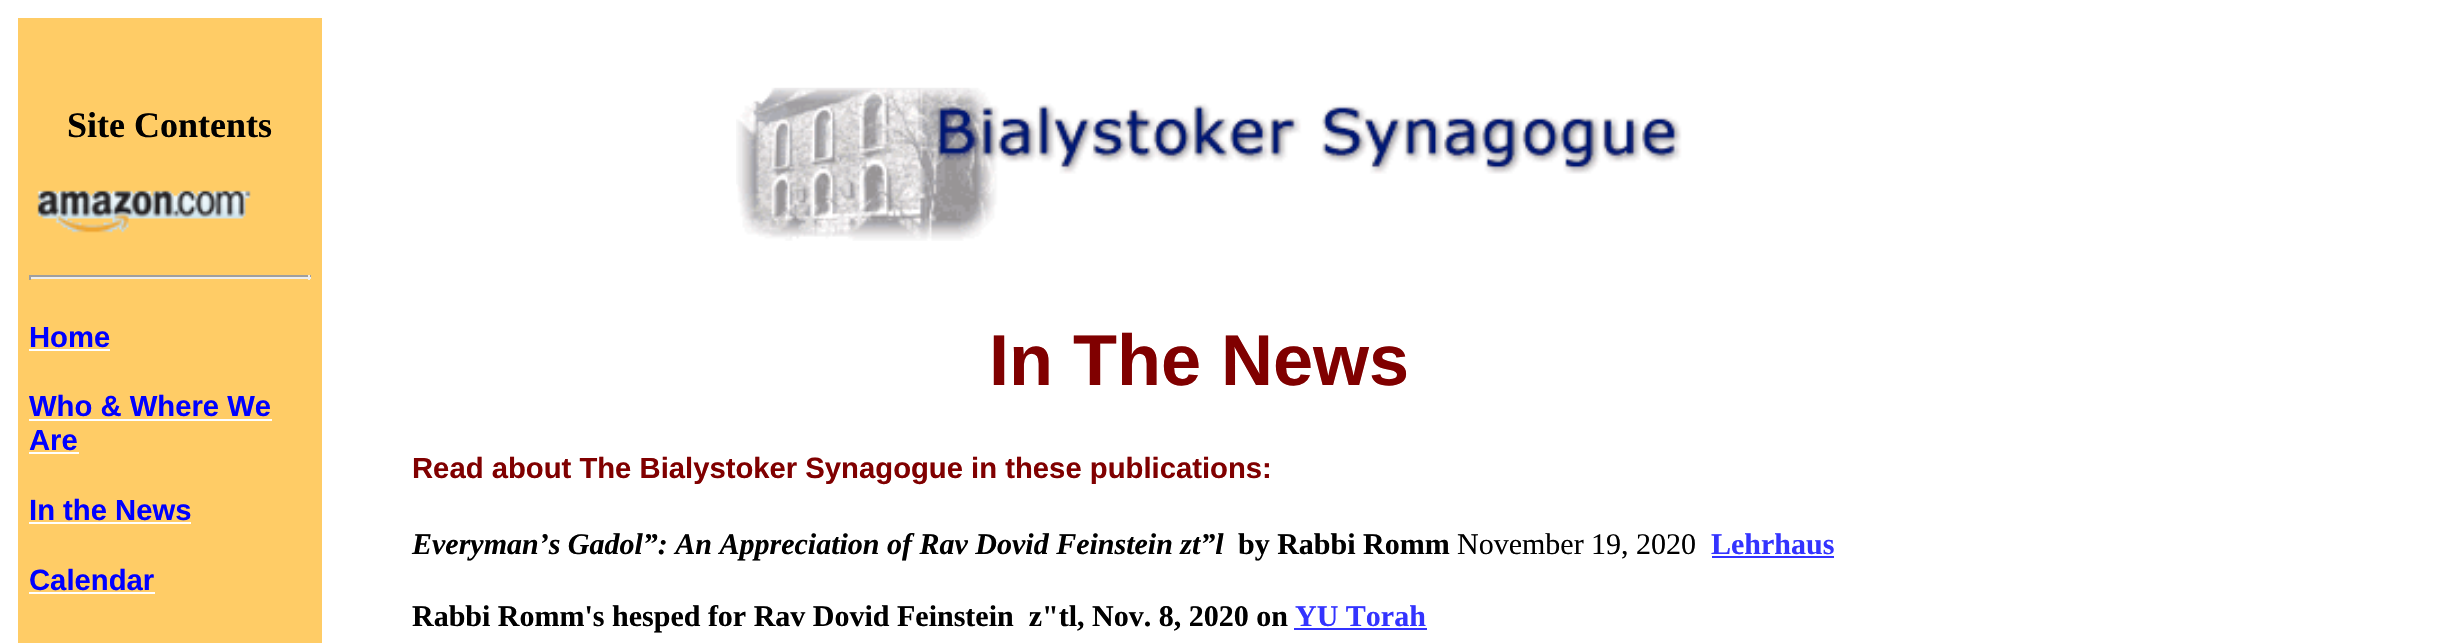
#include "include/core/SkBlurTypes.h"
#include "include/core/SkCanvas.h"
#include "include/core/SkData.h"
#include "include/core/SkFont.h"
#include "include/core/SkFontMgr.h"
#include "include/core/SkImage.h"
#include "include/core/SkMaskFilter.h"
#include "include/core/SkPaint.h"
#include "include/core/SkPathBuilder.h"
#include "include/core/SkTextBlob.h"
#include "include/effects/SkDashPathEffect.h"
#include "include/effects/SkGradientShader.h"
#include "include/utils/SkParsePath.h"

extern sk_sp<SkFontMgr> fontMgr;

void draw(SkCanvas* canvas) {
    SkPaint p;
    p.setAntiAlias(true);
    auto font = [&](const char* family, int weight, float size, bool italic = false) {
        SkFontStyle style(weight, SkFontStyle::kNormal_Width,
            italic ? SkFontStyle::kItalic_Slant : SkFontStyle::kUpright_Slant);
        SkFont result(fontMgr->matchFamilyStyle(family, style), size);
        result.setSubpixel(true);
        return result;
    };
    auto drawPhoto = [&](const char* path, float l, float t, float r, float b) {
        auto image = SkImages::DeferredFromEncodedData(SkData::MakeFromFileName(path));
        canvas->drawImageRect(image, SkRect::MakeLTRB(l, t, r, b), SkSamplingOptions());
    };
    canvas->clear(0xFFFFFFFF);
    p.setColor(0xFFFFCC66);
    canvas->drawRect(SkRect::MakeLTRB(18, 18, 322, 643), p);
    auto font1 = font("Liberation Serif", 700, 36);
    p.setColor(0xFF000000);
    canvas->drawString("Site Contents", 67, 137, font1, p);
    drawPhoto("media/1.png", 37, 190, 251, 233);
    {
        const struct { float l, t, r, b; SkColor color; } items[] = {
            {29, 275, 311, 277, 0xFF9F9F9F},
            {308, 275, 310, 280, 0xFFEEEEEE},
            {29, 277, 311, 279, 0xFFEEEEEE},
            {29, 275, 31, 280, 0xFF9F9F9F},
        };
        for (auto [l, t, r, b, color] : items) {
            p.setColor(color);
            canvas->drawRect(SkRect::MakeLTRB(l, t, r, b), p);
        }
    }
    drawPhoto("media/2.png", 736, 87, 1682, 241);
    auto font2 = font("Liberation Sans", 700, 29.25f);
    p.setColor(0xFF0000FF);
    canvas->drawString("Home", 29, 347, font2, p);
    p.setColor(0xFFFFFFFF);
    canvas->drawRect(SkRect::MakeLTRB(29, 349, 110, 351), p);
    p.setColor(0xFF0000FF);
    canvas->drawString("Who & Where We", 29, 416, font2, p);
    p.setColor(0xFFFFFFFF);
    canvas->drawRect(SkRect::MakeLTRB(29, 419, 272, 421), p);
    p.setColor(0xFF0000FF);
    canvas->drawString("Are", 29, 450, font2, p);
    p.setColor(0xFFFFFFFF);
    canvas->drawRect(SkRect::MakeLTRB(29, 452, 79, 454), p);
    p.setColor(0xFF0000FF);
    canvas->drawString("In the News", 29, 520, font2, p);
    p.setColor(0xFFFFFFFF);
    canvas->drawRect(SkRect::MakeLTRB(29, 522, 191, 524), p);
    p.setColor(0xFF0000FF);
    canvas->drawString("Calendar", 29, 590, font2, p);
    p.setColor(0xFFFFFFFF);
    canvas->drawRect(SkRect::MakeLTRB(29, 592, 155, 594), p);
    auto font3 = font("Liberation Sans", 700, 72);
    p.setColor(0xFF800000);
    canvas->drawString("In The News", 989, 385, font3, p);
    canvas->drawString("Read about The Bialystoker Synagogue in these publications:", 412, 478, font2, p);
    auto font4 = font("Liberation Serif", 700, 30, true);
    p.setColor(0xFF000000);
    canvas->drawString("Everyman’s Gadol”: An Appreciation of Rav Dovid Feinstein zt”l", 412, 554, font4, p);
    auto font5 = font("Liberation Serif", 700, 30);
    canvas->drawString("by Rabbi Romm", 1238, 554, font5, p);
    auto font6 = font("Liberation Serif", 400, 30);
    canvas->drawString("November 19, 2020", 1457, 554, font6, p);
    p.setColor(0xFF3333FF);
    canvas->drawString("Lehrhaus", 1711, 554, font5, p);
    canvas->drawRect(SkRect::MakeLTRB(1712, 556, 1834, 558), p);
    p.setColor(0xFF000000);
    canvas->drawString("Rabbi Romm's hesped for Rav Dovid Feinstein  z\"tl, Nov. 8, 2020 on", 412, 626, font5, p);
    p.setColor(0xFF3333FF);
    canvas->drawString("YU Torah", 1295, 626, font5, p);
    canvas->drawRect(SkRect::MakeLTRB(1294, 628, 1427, 630), p);
}
